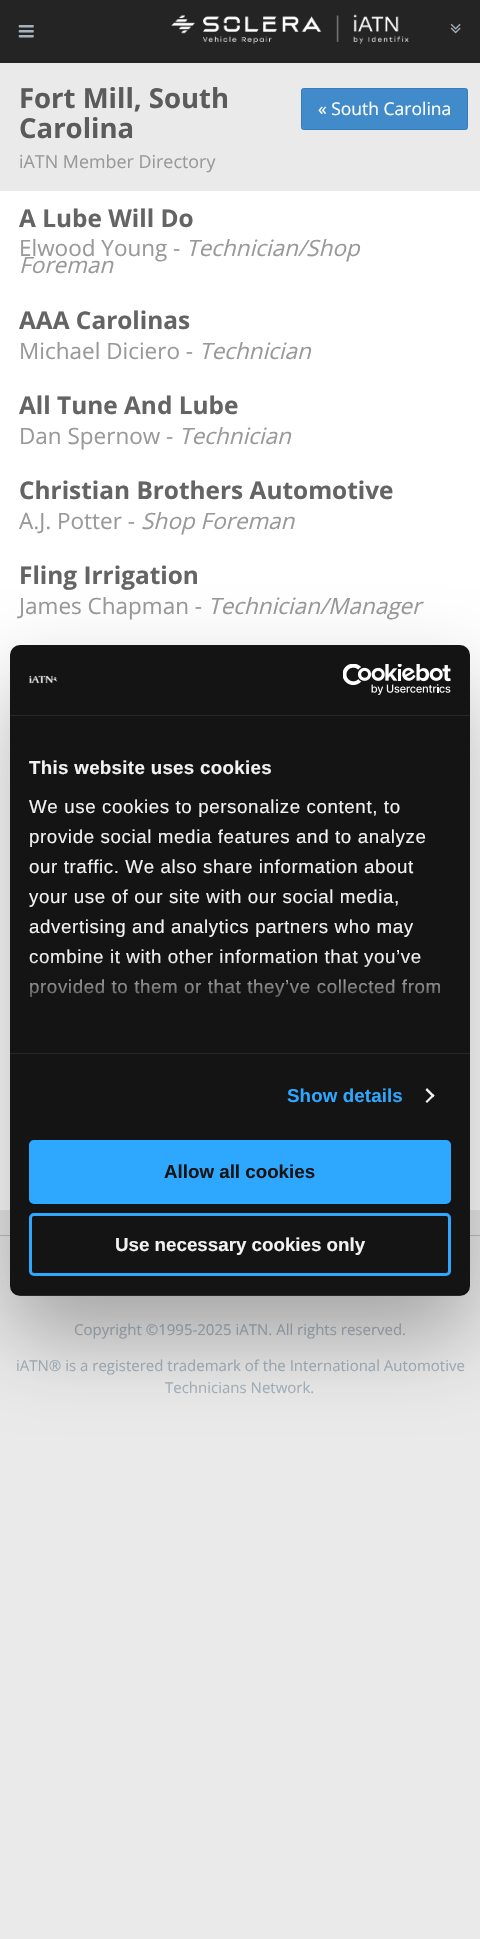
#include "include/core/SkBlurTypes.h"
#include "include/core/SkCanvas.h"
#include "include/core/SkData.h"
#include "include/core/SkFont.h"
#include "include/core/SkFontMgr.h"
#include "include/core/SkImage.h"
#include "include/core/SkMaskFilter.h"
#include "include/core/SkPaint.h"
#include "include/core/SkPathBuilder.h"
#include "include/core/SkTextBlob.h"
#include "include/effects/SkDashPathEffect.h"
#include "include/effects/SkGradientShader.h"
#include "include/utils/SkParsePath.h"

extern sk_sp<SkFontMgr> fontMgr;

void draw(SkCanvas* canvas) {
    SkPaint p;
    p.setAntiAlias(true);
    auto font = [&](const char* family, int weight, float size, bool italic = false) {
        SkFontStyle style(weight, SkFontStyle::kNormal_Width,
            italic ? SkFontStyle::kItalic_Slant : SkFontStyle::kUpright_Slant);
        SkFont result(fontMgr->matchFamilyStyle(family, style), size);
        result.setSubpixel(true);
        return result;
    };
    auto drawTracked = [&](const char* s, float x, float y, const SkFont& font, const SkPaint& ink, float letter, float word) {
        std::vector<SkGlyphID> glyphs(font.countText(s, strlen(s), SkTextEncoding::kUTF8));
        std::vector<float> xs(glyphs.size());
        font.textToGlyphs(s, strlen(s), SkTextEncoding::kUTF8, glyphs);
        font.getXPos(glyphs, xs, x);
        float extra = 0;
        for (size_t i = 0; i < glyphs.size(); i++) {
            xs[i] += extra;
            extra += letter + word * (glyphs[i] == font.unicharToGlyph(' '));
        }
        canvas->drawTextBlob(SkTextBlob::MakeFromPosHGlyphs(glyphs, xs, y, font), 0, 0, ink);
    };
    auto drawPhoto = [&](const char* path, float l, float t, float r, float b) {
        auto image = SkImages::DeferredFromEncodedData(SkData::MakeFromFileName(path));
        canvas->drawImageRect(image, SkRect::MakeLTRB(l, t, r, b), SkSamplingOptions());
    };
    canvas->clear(0xFFEAEAEA);
    p.setColor(0xFF242424);
    canvas->drawRect(SkRect::MakeLTRB(0, 0, 480, 63), p);
    drawPhoto("media/1.png", 18, 25, 34, 38);
    drawPhoto("media/2.png", 171, 14, 409, 44);
    drawPhoto("media/3.png", 450, 23, 461, 34);
    auto font1 = font("Open Sans", 700, 27.5f);
    p.setColor(0xFF5B5B5B);
    canvas->drawString("Fort Mill, South", 19, 108, font1, p);
    canvas->drawString("Carolina", 19, 138, font1, p);
    auto font2 = font("Open Sans", 400, 17.9f);
    p.setColor(0xFF999999);
    canvas->drawString("iATN Member Directory", 19, 168, font2, p);
    p.setColor(0xFF428BCA);
    canvas->drawRoundRect(SkRect::MakeLTRB(301.5f, 88.5f, 467.5f, 129.5f), 2, 2, p);
    p.setStyle(SkPaint::kStroke_Style);
    p.setStrokeWidth(1);
    p.setColor(0xFF357EBD);
    canvas->drawRoundRect(SkRect::MakeLTRB(301.5f, 88.5f, 467.5f, 129.5f), 2, 2, p);
    auto font3 = font("Open Sans", 400, 17.5f);
    p.setStyle(SkPaint::kFill_Style);
    p.setColor(0xFFFFFFFF);
    canvas->drawString("« South Carolina", 318, 115, font3, p);
    canvas->drawRect(SkRect::MakeLTRB(0, 191, 480, 1210), p);
    auto font4 = font("Open Sans", 700, 24.4f);
    p.setColor(0xFF646464);
    canvas->drawString("A Lube Will Do", 19, 227, font4, p);
    auto font5 = font("Open Sans", 400, 22.5f);
    p.setColor(0xFF999999);
    canvas->drawString("Elwood Young -", 19, 256, font5, p);
    auto font6 = font("Open Sans", 400, 22.5f, true);
    canvas->drawString("Technician/Shop", 186, 256, font6, p);
    canvas->drawString("Foreman", 19, 273, font6, p);
    p.setColor(0xFF646464);
    canvas->drawString("AAA Carolinas", 19, 329, font4, p);
    p.setColor(0xFF999999);
    canvas->drawString("Michael Diciero -", 19, 359, font5, p);
    canvas->drawString("Technician", 199, 359, font6, p);
    p.setColor(0xFF646464);
    canvas->drawString("All Tune And Lube", 19, 414, font4, p);
    p.setColor(0xFF999999);
    canvas->drawString("Dan Spernow -", 19, 444, font5, p);
    canvas->drawString("Technician", 179, 444, font6, p);
    p.setColor(0xFF646464);
    canvas->drawString("Christian Brothers Automotive", 19, 499, font4, p);
    p.setColor(0xFF999999);
    canvas->drawString("A.J. Potter -", 19, 529, font5, p);
    canvas->drawString("Shop Foreman", 141, 529, font6, p);
    p.setColor(0xFF646464);
    canvas->drawString("Fling Irrigation", 19, 584, font4, p);
    p.setColor(0xFF999999);
    canvas->drawString("James Chapman -", 19, 614, font5, p);
    canvas->drawString("Technician/Manager", 208, 614, font6, p);
    p.setColor(0xFFB9C1CB);
    canvas->drawRect(SkRect::MakeLTRB(0, 1235, 480, 1236), p);
    auto font7 = font("Open Sans", 400, 15);
    p.setColor(0xFFA5B2BC);
    {
        const struct { const char* s; float x, y; } items[] = {
            {"Copyright ©1995-2025 iATN. All rights reserved.", 74, 1335},
            {"iATN® is a registered trademark of the International Automotive", 16, 1371},
            {"Technicians Network.", 165, 1393},
        };
        for (auto [s, x, y] : items) {
            canvas->drawString(s, x, y, font7, p);
        }
    }
    p.setColor(0x4D000000);
    p.setMaskFilter(SkMaskFilter::MakeBlur(kNormal_SkBlurStyle, 42.5f));
    canvas->drawRoundRect(SkRect::MakeLTRB(10, 685, 470, 1336), 10, 10, p);
    p.setMaskFilter(nullptr);
    p.setColor(0xFF141414);
    canvas->drawRoundRect(SkRect::MakeLTRB(10, 645, 470, 1296), 10, 10, p);
    p.setColor(0xFF272727);
    canvas->drawRect(SkRect::MakeLTRB(10, 715, 470, 716), p);
    drawPhoto("media/4.png", 29, 675, 58, 684);
    drawPhoto("media/5.png", 343, 664, 451, 695);
    canvas->drawRect(SkRect::MakeLTRB(10, 1053, 470, 1054), p);
    auto font8 = font("Liberation Sans", 700, 18.75f);
    p.setColor(0xFFF2F2F2);
    drawTracked("This website uses cookies", 29, 774, font8, p, 0.3f, 0);
    auto font9 = font("Liberation Sans", 400, 18.75f);
    {
        const struct { const char* s; float x, y; } items[] = {
            {"We use cookies to personalize content, to", 29, 813},
            {"provide social media features and to analyze", 29, 843},
            {"our traffic. We also share information about", 29, 873},
            {"your use of our site with our social media,", 29, 903},
            {"advertising and analytics partners who may", 29, 933},
            {"combine it with other information that you’ve", 29, 963},
            {"provided to them or that they’ve collected from", 29, 993},
        };
        for (auto [s, x, y] : items) {
            drawTracked(s, x, y, font9, p, 0.6f, 0);
        }
    }
    {
        const SkColor colors[] = {0xFF141414, 0xCC141414, 0x00141414};
        const float stops[] = {0, 0.5f, 1};
        const SkPoint ends[] = {{232, 1052}, {232, 958}};
        p.setShader(SkGradientShader::MakeLinear(ends, colors, stops, 3, SkTileMode::kClamp));
        p.setAlpha(255);
    }
    canvas->drawRect(SkRect::MakeLTRB(30, 959, 441, 997), p);
    p.setShader(nullptr);
    p.setColor(0xFF2EA7FF);
    drawTracked("Show details", 287, 1102, font8, p, 0.1f, 0);
    p.setColor(0xFFF2F2F2);
    canvas->drawPath(SkPathBuilder().moveTo(427, 1088).lineTo(434.5f, 1095.5f).lineTo(433, 1097.5f).lineTo(425.5f, 1090).close().detach(), p);
    canvas->drawPath(SkPathBuilder().moveTo(433, 1094).lineTo(434.5f, 1095.5f).lineTo(427, 1103).lineTo(425.5f, 1101.5f).close().detach(), p);
    canvas->save();
    canvas->clipPath(SkPathBuilder().moveTo(20, 645).lineTo(460, 645).cubicTo(465.5f, 645, 470, 649.5f, 470, 655).lineTo(470, 1286).cubicTo(470, 1291.5f, 465.5f, 1296, 460, 1296).lineTo(20, 1296).cubicTo(14.5f, 1296, 10, 1291.5f, 10, 1286).lineTo(10, 655).cubicTo(10, 649.5f, 14.5f, 645, 20, 645).close().detach(), true);
    p.setColor(0x14FFFFFF);
    canvas->drawRect(SkRect::MakeLTRB(10, 1295, 470, 1296), p);
    canvas->restore();
    p.setColor(0xFF2EA7FF);
    canvas->drawRoundRect(SkRect::MakeLTRB(30.5f, 1141.5f, 449.5f, 1202.5f), 3.5f, 3.5f, p);
    p.setStyle(SkPaint::kStroke_Style);
    p.setStrokeWidth(3);
    canvas->drawRoundRect(SkRect::MakeLTRB(30.5f, 1141.5f, 449.5f, 1202.5f), 3.5f, 3.5f, p);
    p.setStyle(SkPaint::kFill_Style);
    p.setColor(0xFF141414);
    canvas->drawString("Allow all cookies", 164, 1178, font8, p);
    p.setStyle(SkPaint::kStroke_Style);
    p.setColor(0xFF2EA7FF);
    canvas->drawRoundRect(SkRect::MakeLTRB(30.5f, 1214.5f, 449.5f, 1274.5f), 3.5f, 3.5f, p);
    p.setStyle(SkPaint::kFill_Style);
    p.setColor(0xFFF2F2F2);
    canvas->drawString("Use necessary cookies only", 115, 1251, font8, p);
}
